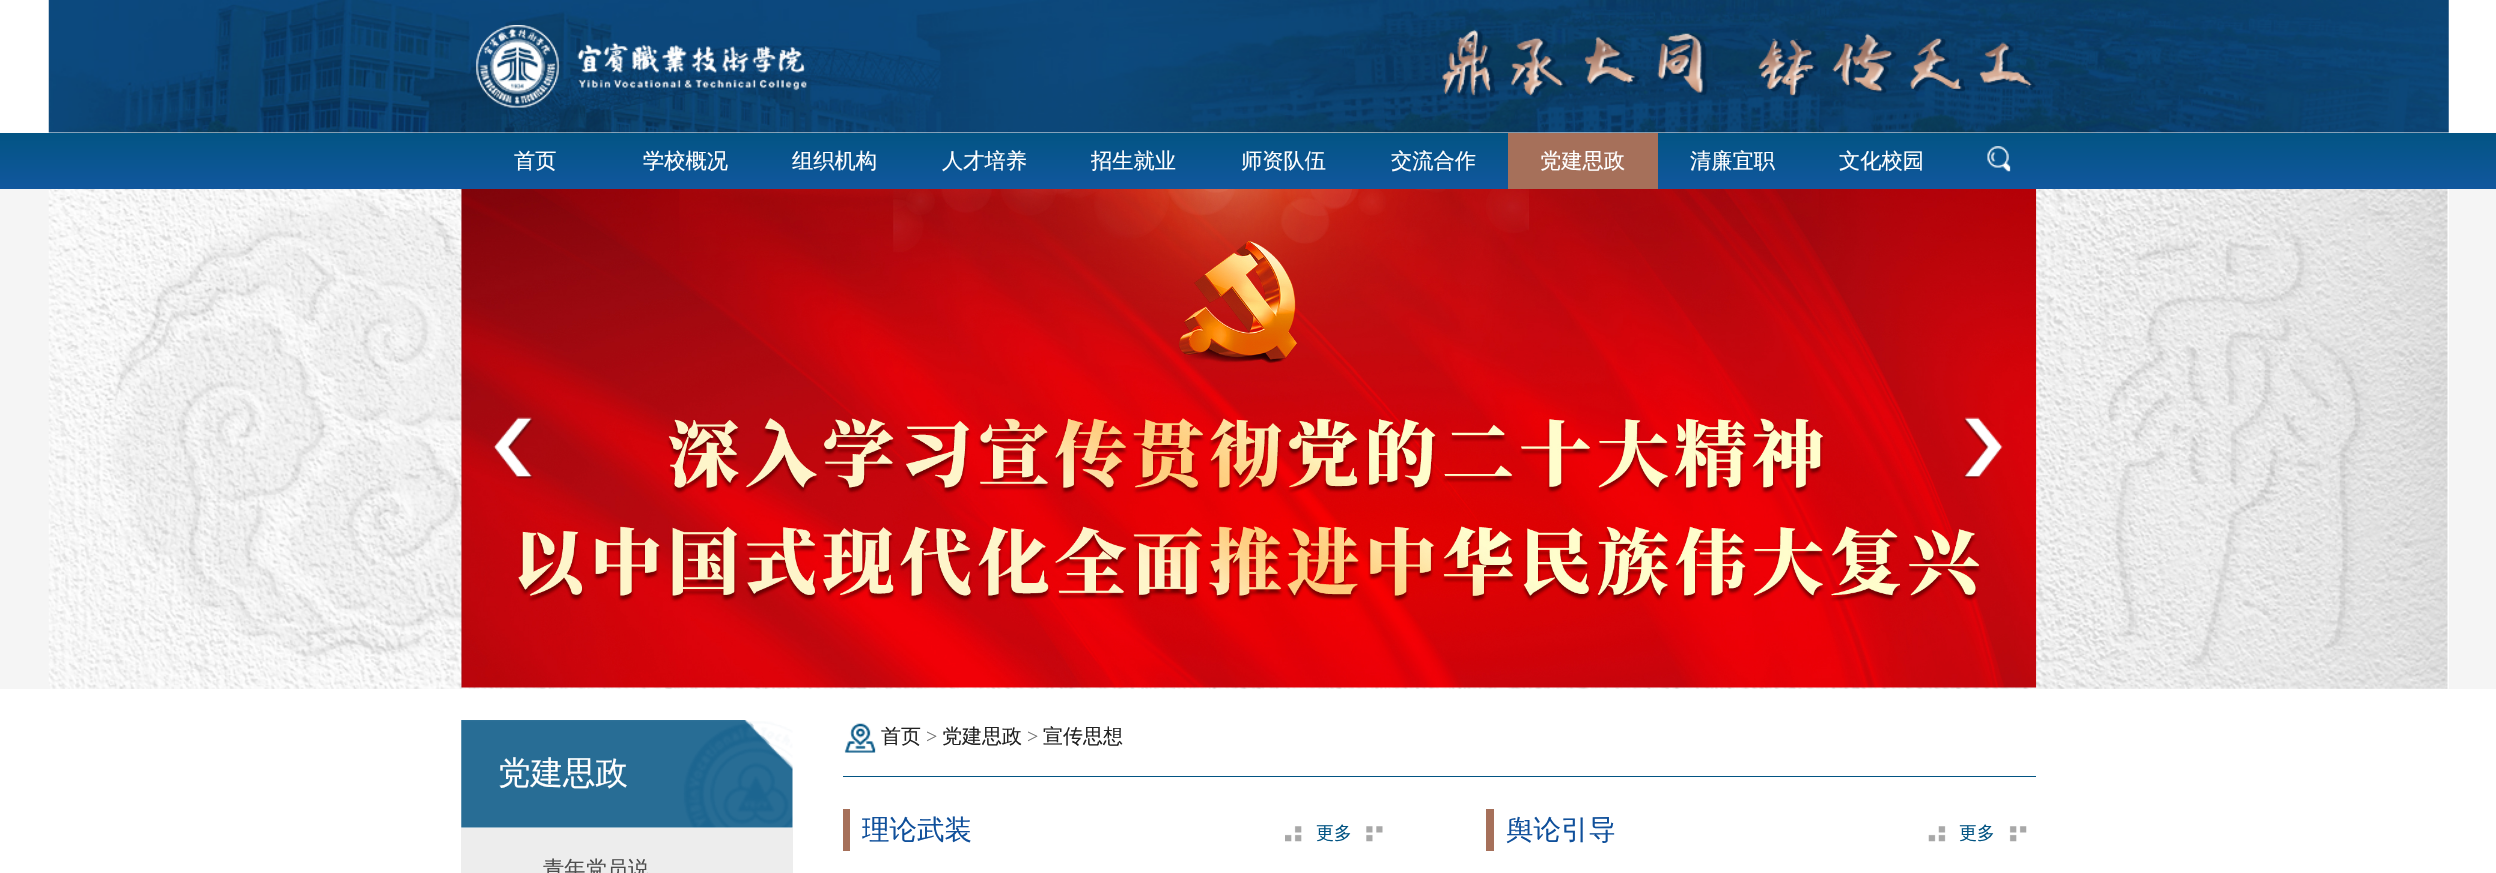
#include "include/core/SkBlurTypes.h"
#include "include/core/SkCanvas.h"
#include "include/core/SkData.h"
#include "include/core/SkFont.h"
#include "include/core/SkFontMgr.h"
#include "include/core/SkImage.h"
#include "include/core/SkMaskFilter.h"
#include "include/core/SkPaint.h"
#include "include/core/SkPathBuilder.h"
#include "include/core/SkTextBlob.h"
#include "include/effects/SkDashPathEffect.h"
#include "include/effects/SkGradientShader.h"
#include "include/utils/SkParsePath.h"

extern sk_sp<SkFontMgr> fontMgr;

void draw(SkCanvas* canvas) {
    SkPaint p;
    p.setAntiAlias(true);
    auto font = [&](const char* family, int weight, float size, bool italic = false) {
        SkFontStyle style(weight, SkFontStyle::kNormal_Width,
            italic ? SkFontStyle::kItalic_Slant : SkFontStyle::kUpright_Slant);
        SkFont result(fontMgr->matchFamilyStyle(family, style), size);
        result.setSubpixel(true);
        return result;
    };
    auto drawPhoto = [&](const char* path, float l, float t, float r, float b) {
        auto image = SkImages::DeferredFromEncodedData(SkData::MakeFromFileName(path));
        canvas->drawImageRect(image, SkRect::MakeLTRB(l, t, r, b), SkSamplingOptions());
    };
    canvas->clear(0xFFFFFFFF);
    drawPhoto("media/1.png", 48, 0, 2449, 133);
    drawPhoto("media/2.png", 476, 25, 807, 108);
    drawPhoto("media/3.png", 1442, 29, 2036, 98);
    {
        const SkColor colors[] = {0xFF025483, 0xFF11579E};
        const float stops[] = {0, 1};
        const SkPoint ends[] = {{1248, 132}, {1248, 189}};
        p.setShader(SkGradientShader::MakeLinear(ends, colors, stops, 2, SkTileMode::kClamp));
        p.setAlpha(255);
    }
    canvas->drawRect(SkRect::MakeLTRB(0, 133, 2496, 189), p);
    auto font1 = font("WenQuanYi Zen Hei", 500, 21.25f);
    p.setShader(nullptr);
    p.setColor(0xFFFFFFFF);
    {
        const struct { const char* s; float x, y; } items[] = {
            {"首页", 514, 168},
            {"学校概况", 643, 168},
            {"组织机构", 792, 168},
            {"人才培养", 942, 168},
            {"招生就业", 1091, 168},
            {"师资队伍", 1241, 168},
            {"交流合作", 1391, 168},
        };
        for (auto [s, x, y] : items) {
            canvas->drawString(s, x, y, font1, p);
        }
    }
    p.setColor(0xFFA6705A);
    canvas->drawRect(SkRect::MakeLTRB(1508, 133, 1658, 189), p);
    p.setColor(0xFFFFFFFF);
    {
        const struct { const char* s; float x, y; } items[] = {
            {"党建思政", 1540, 168},
            {"清廉宜职", 1690, 168},
            {"文化校园", 1839, 168},
        };
        for (auto [s, x, y] : items) {
            canvas->drawString(s, x, y, font1, p);
        }
    }
    drawPhoto("media/4.png", 1987, 146, 2011, 172);
    p.setColor(0xFFF5F5F5);
    canvas->drawRect(SkRect::MakeLTRB(0, 189, 2496, 689), p);
    drawPhoto("media/5.png", 48, 189, 2449, 689);
    drawPhoto("media/6.png", 461, 189, 2037, 688);
    drawPhoto("media/7.png", 493, 417, 534, 479);
    drawPhoto("media/8.png", 1963, 417, 2003, 479);
    drawPhoto("media/9.png", 461, 720, 793, 828);
    auto font2 = font("WenQuanYi Zen Hei", 500, 32.5f);
    p.setColor(0xFFFFFFFF);
    canvas->drawString("党建思政", 498, 784, font2, p);
    p.setColor(0xFFEDEDED);
    canvas->drawRect(SkRect::MakeLTRB(461, 828, 793, 873), p);
    p.setColor(0xFF4D4D4D);
    canvas->drawString("青年党员说", 543, 876, font1, p);
    p.setColor(0xFF025483);
    canvas->drawRect(SkRect::MakeLTRB(843, 776, 2036, 777), p);
    drawPhoto("media/10.png", 844, 723, 876, 753);
    auto font3 = font("WenQuanYi Zen Hei", 500, 20);
    p.setColor(0xFF222222);
    canvas->drawString("首页", 881, 743, font3, p);
    auto font4 = font("Liberation Serif", 400, 20);
    p.setColor(0xFF727272);
    canvas->drawString(">", 926, 743, font4, p);
    p.setColor(0xFF222222);
    canvas->drawString("党建思政", 942, 743, font3, p);
    p.setColor(0xFF727272);
    canvas->drawString(">", 1027, 743, font4, p);
    p.setColor(0xFF222222);
    canvas->drawString("宣传思想", 1043, 743, font3, p);
    p.setColor(0xFFA6705A);
    canvas->drawRect(SkRect::MakeLTRB(843, 809, 850, 851), p);
    auto font5 = font("WenQuanYi Zen Hei", 500, 27.5f);
    p.setColor(0xFF10509B);
    canvas->drawString("理论武装", 862, 839, font5, p);
    drawPhoto("media/11.png", 1285, 826, 1383, 842);
    auto font6 = font("WenQuanYi Zen Hei", 500, 18);
    p.setColor(0xFF025483);
    canvas->drawString("更多", 1316, 839, font6, p);
    p.setColor(0xFFA6705A);
    canvas->drawRect(SkRect::MakeLTRB(1486, 809, 1494, 851), p);
    p.setColor(0xFF10509B);
    canvas->drawString("舆论引导", 1506, 839, font5, p);
    drawPhoto("media/12.png", 1928, 826, 2027, 842);
    p.setColor(0xFF025483);
    canvas->drawString("更多", 1959, 839, font6, p);
}
